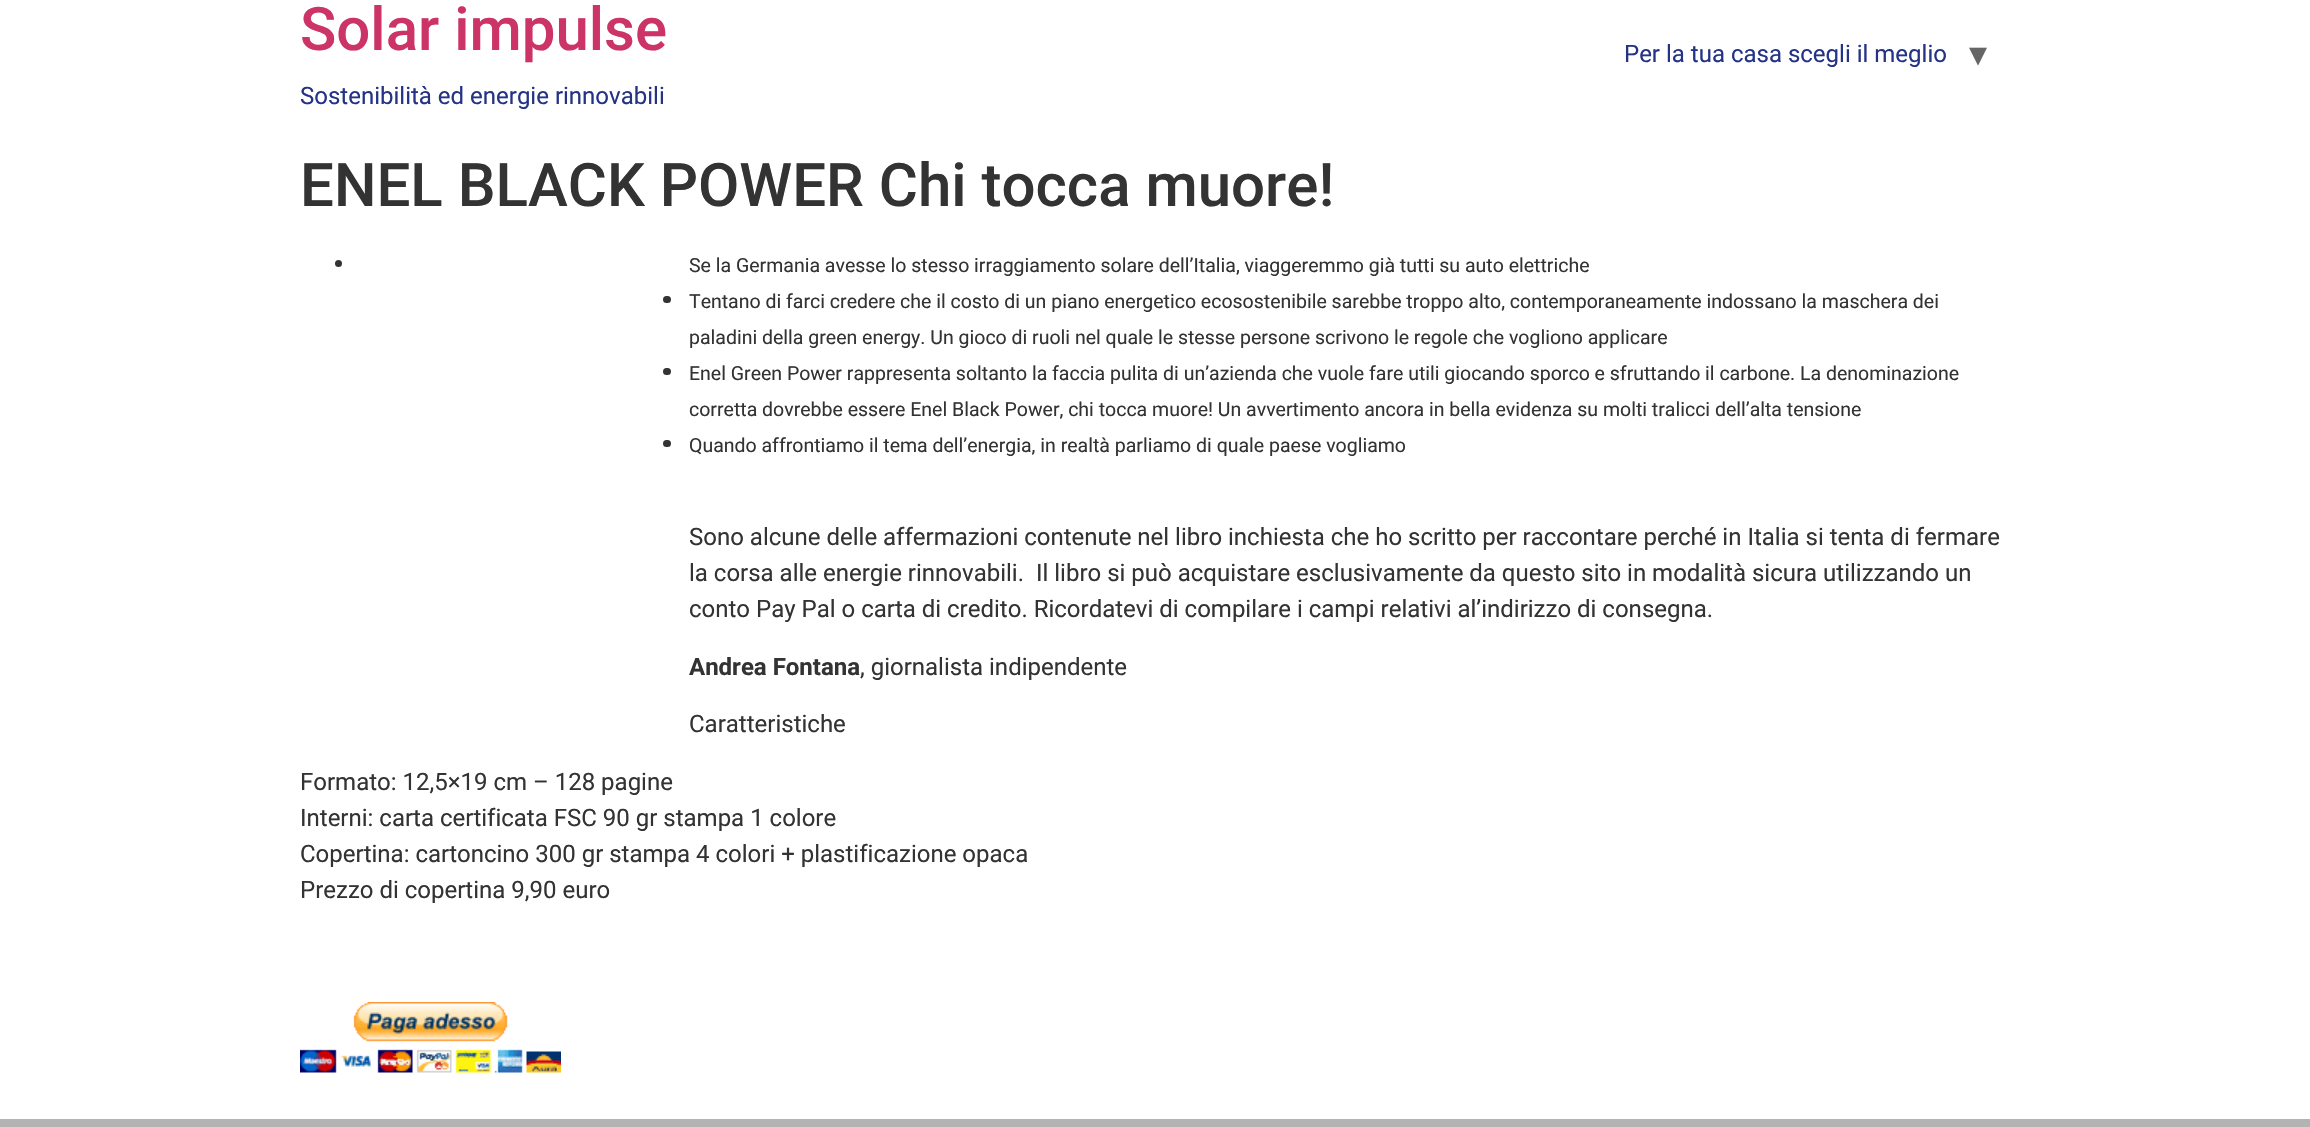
#include "include/core/SkBlurTypes.h"
#include "include/core/SkCanvas.h"
#include "include/core/SkData.h"
#include "include/core/SkFont.h"
#include "include/core/SkFontMgr.h"
#include "include/core/SkImage.h"
#include "include/core/SkMaskFilter.h"
#include "include/core/SkPaint.h"
#include "include/core/SkPathBuilder.h"
#include "include/core/SkTextBlob.h"
#include "include/effects/SkDashPathEffect.h"
#include "include/effects/SkGradientShader.h"
#include "include/utils/SkParsePath.h"

extern sk_sp<SkFontMgr> fontMgr;

void draw(SkCanvas* canvas) {
    SkPaint p;
    p.setAntiAlias(true);
    auto font = [&](const char* family, int weight, float size, bool italic = false) {
        SkFontStyle style(weight, SkFontStyle::kNormal_Width,
            italic ? SkFontStyle::kItalic_Slant : SkFontStyle::kUpright_Slant);
        SkFont result(fontMgr->matchFamilyStyle(family, style), size);
        result.setSubpixel(true);
        return result;
    };
    auto drawPhoto = [&](const char* path, float l, float t, float r, float b) {
        auto image = SkImages::DeferredFromEncodedData(SkData::MakeFromFileName(path));
        canvas->drawImageRect(image, SkRect::MakeLTRB(l, t, r, b), SkSamplingOptions());
    };
    canvas->clear(0xFFFFFFFF);
    auto font1 = font("Roboto", 500, 60);
    p.setColor(0xFFCC3366);
    canvas->drawString("Solar impulse", 300, 50, font1, p);
    auto font2 = font("Roboto", 400, 24);
    p.setColor(0xFF243386);
    canvas->drawString("Sostenibilità ed energie rinnovabili", 300, 104, font2, p);
    canvas->drawString("Per la tua casa scegli il meglio", 1624, 62, font2, p);
    auto font3 = font("DejaVu Sans", 400, 36);
    p.setColor(0xFF666666);
    canvas->drawString("▾", 1969, 66, font3, p);
    p.setColor(0xFF333333);
    canvas->drawString("ENEL BLACK POWER Chi tocca muore!", 300, 206, font1, p);
    canvas->drawCircle(338.5f, 263.5f, 3.5f, p);
    auto font4 = font("Roboto", 400, 19.5f);
    canvas->drawString("Se la Germania avesse lo stesso irraggiamento solare dell’Italia, viaggeremmo già tutti su auto elettriche", 689, 272, font4, p);
    canvas->drawRoundRect(SkRect::MakeLTRB(663, 296, 671, 303), 3.5f, 3.5f, p);
    canvas->drawString("Tentano di farci credere che il costo di un piano energetico ecosostenibile sarebbe troppo alto, contemporaneamente indossano la maschera dei", 689, 308, font4, p);
    canvas->drawString("paladini della green energy. Un gioco di ruoli nel quale le stesse persone scrivono le regole che vogliono applicare", 689, 344, font4, p);
    canvas->drawRoundRect(SkRect::MakeLTRB(663, 368, 671, 375), 3.5f, 3.5f, p);
    canvas->drawString("Enel Green Power rappresenta soltanto la faccia pulita di un’azienda che vuole fare utili giocando sporco e sfruttando il carbone. La denominazione", 689, 380, font4, p);
    canvas->drawString("corretta dovrebbe essere Enel Black Power, chi tocca muore! Un avvertimento ancora in bella evidenza su molti tralicci dell’alta tensione", 689, 416, font4, p);
    canvas->drawRoundRect(SkRect::MakeLTRB(663, 440, 671, 447), 3.5f, 3.5f, p);
    canvas->drawString("Quando affrontiamo il tema dell’energia, in realtà parliamo di quale paese vogliamo", 689, 452, font4, p);
    {
        const struct { const char* s; float x, y; } items[] = {
            {"Sono alcune delle affermazioni contenute nel libro inchiesta che ho scritto per raccontare perché in Italia si tenta di fermare", 689, 545},
            {"la corsa alle energie rinnovabili.  Il libro si può acquistare esclusivamente da questo sito in modalità sicura utilizzando un", 689, 581},
            {"conto Pay Pal o carta di credito. Ricordatevi di compilare i campi relativi al’indirizzo di consegna.", 689, 617},
        };
        for (auto [s, x, y] : items) {
            canvas->drawString(s, x, y, font2, p);
        }
    }
    auto font5 = font("Roboto", 700, 24);
    canvas->drawString("Andrea Fontana", 689, 675, font5, p);
    {
        const struct { const char* s; float x, y; } items[] = {
            {", giornalista indipendente", 860, 675},
            {"Caratteristiche", 689, 732},
            {"Formato: 12,5×19 cm – 128 pagine", 300, 790},
            {"Interni: carta certificata FSC 90 gr stampa 1 colore", 300, 826},
            {"Copertina: cartoncino 300 gr stampa 4 colori + plastificazione opaca", 300, 862},
            {"Prezzo di copertina 9,90 euro", 300, 898},
        };
        for (auto [s, x, y] : items) {
            canvas->drawString(s, x, y, font2, p);
        }
    }
    drawPhoto("media/1.png", 300, 1002, 561, 1073);
    p.setColor(0xFFB3B3B3);
    canvas->drawRect(SkRect::MakeLTRB(0, 1119, 2310, 1127), p);
}
